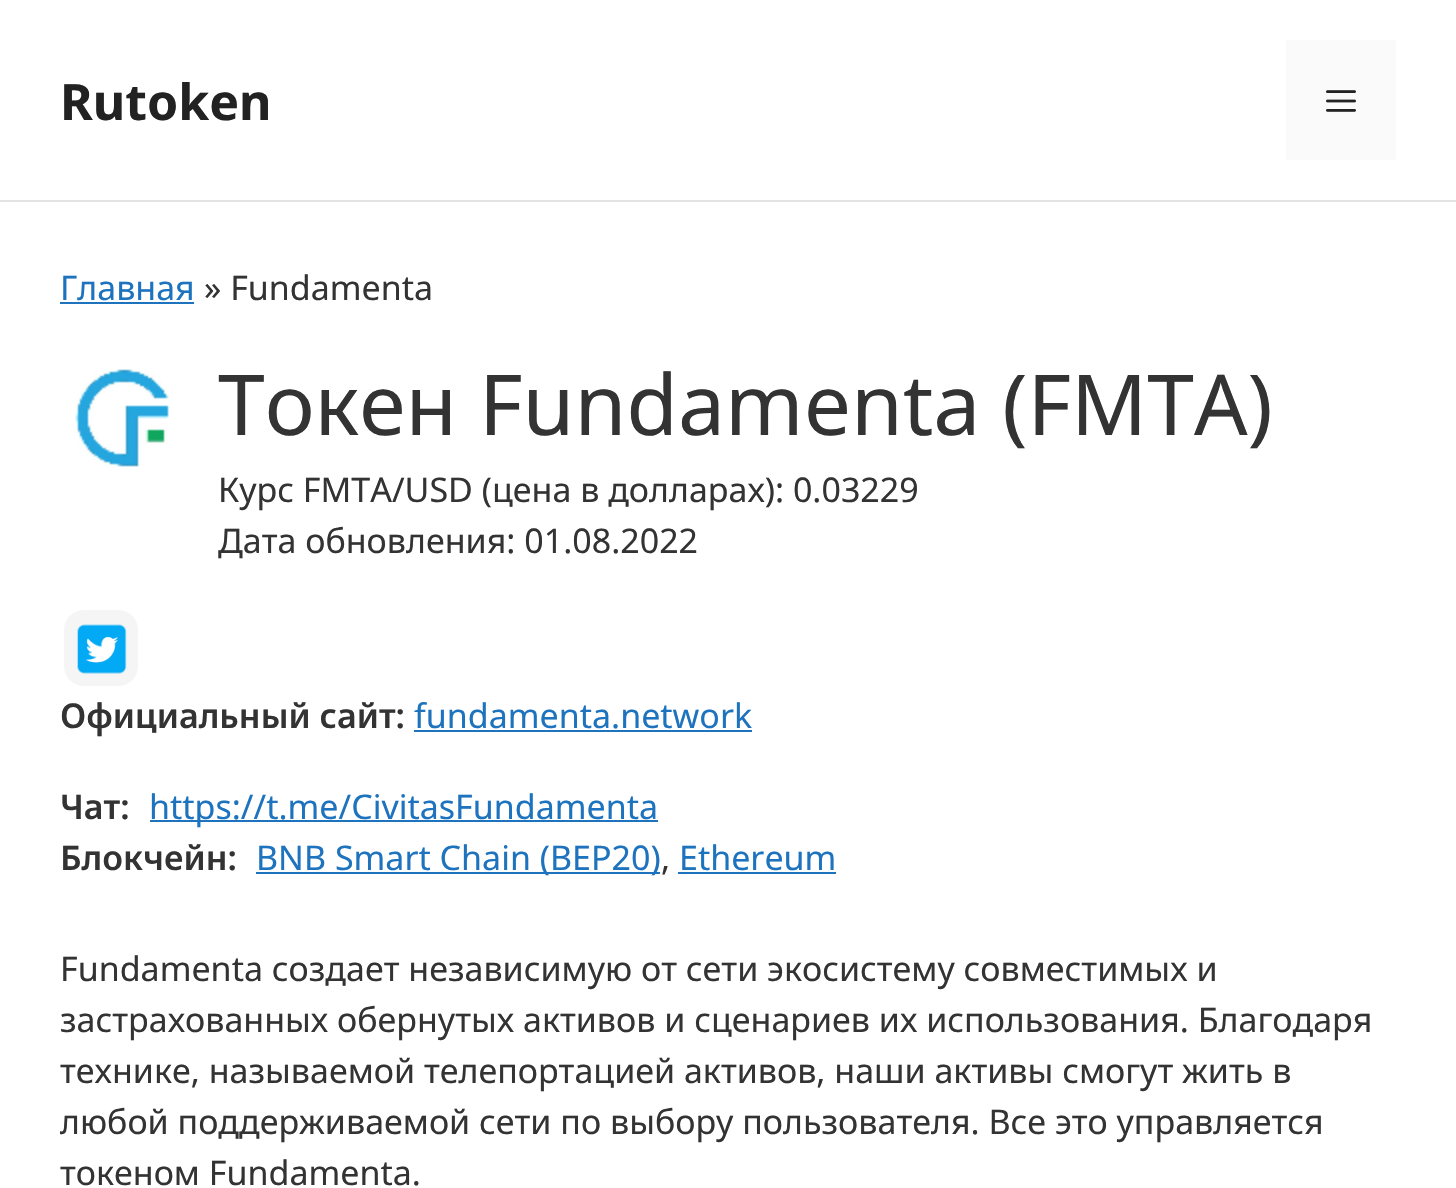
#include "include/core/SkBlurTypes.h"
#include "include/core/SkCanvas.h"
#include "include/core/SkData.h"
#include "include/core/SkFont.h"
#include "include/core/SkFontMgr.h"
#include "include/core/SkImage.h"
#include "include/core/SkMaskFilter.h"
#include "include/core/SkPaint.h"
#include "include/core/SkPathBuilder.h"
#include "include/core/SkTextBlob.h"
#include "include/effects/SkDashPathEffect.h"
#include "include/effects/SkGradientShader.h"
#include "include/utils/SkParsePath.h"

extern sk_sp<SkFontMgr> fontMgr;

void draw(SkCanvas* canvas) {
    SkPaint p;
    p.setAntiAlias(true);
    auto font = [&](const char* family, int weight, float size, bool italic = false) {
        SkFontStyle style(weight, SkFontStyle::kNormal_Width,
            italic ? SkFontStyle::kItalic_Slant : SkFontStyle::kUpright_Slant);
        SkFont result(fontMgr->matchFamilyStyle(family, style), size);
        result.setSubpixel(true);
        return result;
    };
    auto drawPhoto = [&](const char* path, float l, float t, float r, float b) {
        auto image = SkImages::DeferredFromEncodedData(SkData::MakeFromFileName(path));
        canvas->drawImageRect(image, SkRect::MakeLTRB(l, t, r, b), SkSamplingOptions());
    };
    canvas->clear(0xFFFFFFFF);
    p.setColor(0xFFE3E3E3);
    canvas->drawRect(SkRect::MakeLTRB(0, 200, 1456, 202), p);
    auto font1 = font("Noto Sans", 700, 50);
    p.setColor(0xFF222222);
    canvas->drawString("Rutoken", 60, 120, font1, p);
    p.setColor(0xFFFAFAFA);
    canvas->drawRect(SkRect::MakeLTRB(1286, 40, 1396, 160), p);
    drawPhoto("media/1.png", 1326, 90, 1356, 112);
    auto font2 = font("Noto Sans", 400, 34);
    p.setColor(0xFF1E73BE);
    canvas->drawString("Главная", 60, 300, font2, p);
    canvas->drawRect(SkRect::MakeLTRB(60, 302, 194, 304), p);
    p.setColor(0xFF333333);
    canvas->drawString("» Fundamenta", 204, 300, font2, p);
    drawPhoto("media/2.png", 75, 369, 169, 467);
    auto font3 = font("Noto Sans", 400, 84);
    canvas->drawString("Токен Fundamenta (FMTA)", 218, 435, font3, p);
    canvas->drawString("Курс FMTA/USD (цена в долларах): 0.03229", 218, 502, font2, p);
    canvas->drawString("Дата обновления: 01.08.2022", 218, 553, font2, p);
    p.setColor(0xFFF5F5F5);
    canvas->drawRoundRect(SkRect::MakeLTRB(64, 610, 138, 686), 20, 20, p);
    drawPhoto("media/3.png", 77, 624, 127, 674);
    auto font4 = font("Noto Sans", 600, 34);
    p.setColor(0xFF333333);
    canvas->drawString("Официальный сайт:", 60, 728, font4, p);
    p.setColor(0xFF1E73BE);
    canvas->drawString("fundamenta.network", 414, 728, font2, p);
    canvas->drawRect(SkRect::MakeLTRB(414, 730, 752, 732), p);
    p.setColor(0xFF333333);
    canvas->drawString("Чат:", 60, 819, font4, p);
    p.setColor(0xFF1E73BE);
    canvas->drawRect(SkRect::MakeLTRB(150, 820, 658, 822), p);
    canvas->drawString("https://t.me/CivitasFundamenta", 149, 819, font2, p);
    p.setColor(0xFF333333);
    canvas->drawString("Блокчейн:", 60, 870, font4, p);
    p.setColor(0xFF1E73BE);
    canvas->drawRect(SkRect::MakeLTRB(256, 872, 660, 874), p);
    canvas->drawString("BNB Smart Chain (BEP20)", 256, 870, font2, p);
    p.setColor(0xFF333333);
    canvas->drawString(",", 661, 870, font2, p);
    p.setColor(0xFF1E73BE);
    canvas->drawString("Ethereum", 679, 870, font2, p);
    canvas->drawRect(SkRect::MakeLTRB(678, 872, 836, 874), p);
    p.setColor(0xFF333333);
    {
        const struct { const char* s; float x, y; } items[] = {
            {"Fundamenta создает независимую от сети экосистему совместимых и", 60, 981},
            {"застрахованных обернутых активов и сценариев их использования. Благодаря", 60, 1032},
            {"технике, называемой телепортацией активов, наши активы смогут жить в", 60, 1083},
            {"любой поддерживаемой сети по выбору пользователя. Все это управляется", 60, 1134},
            {"токеном Fundamenta.", 60, 1185},
        };
        for (auto [s, x, y] : items) {
            canvas->drawString(s, x, y, font2, p);
        }
    }
}
